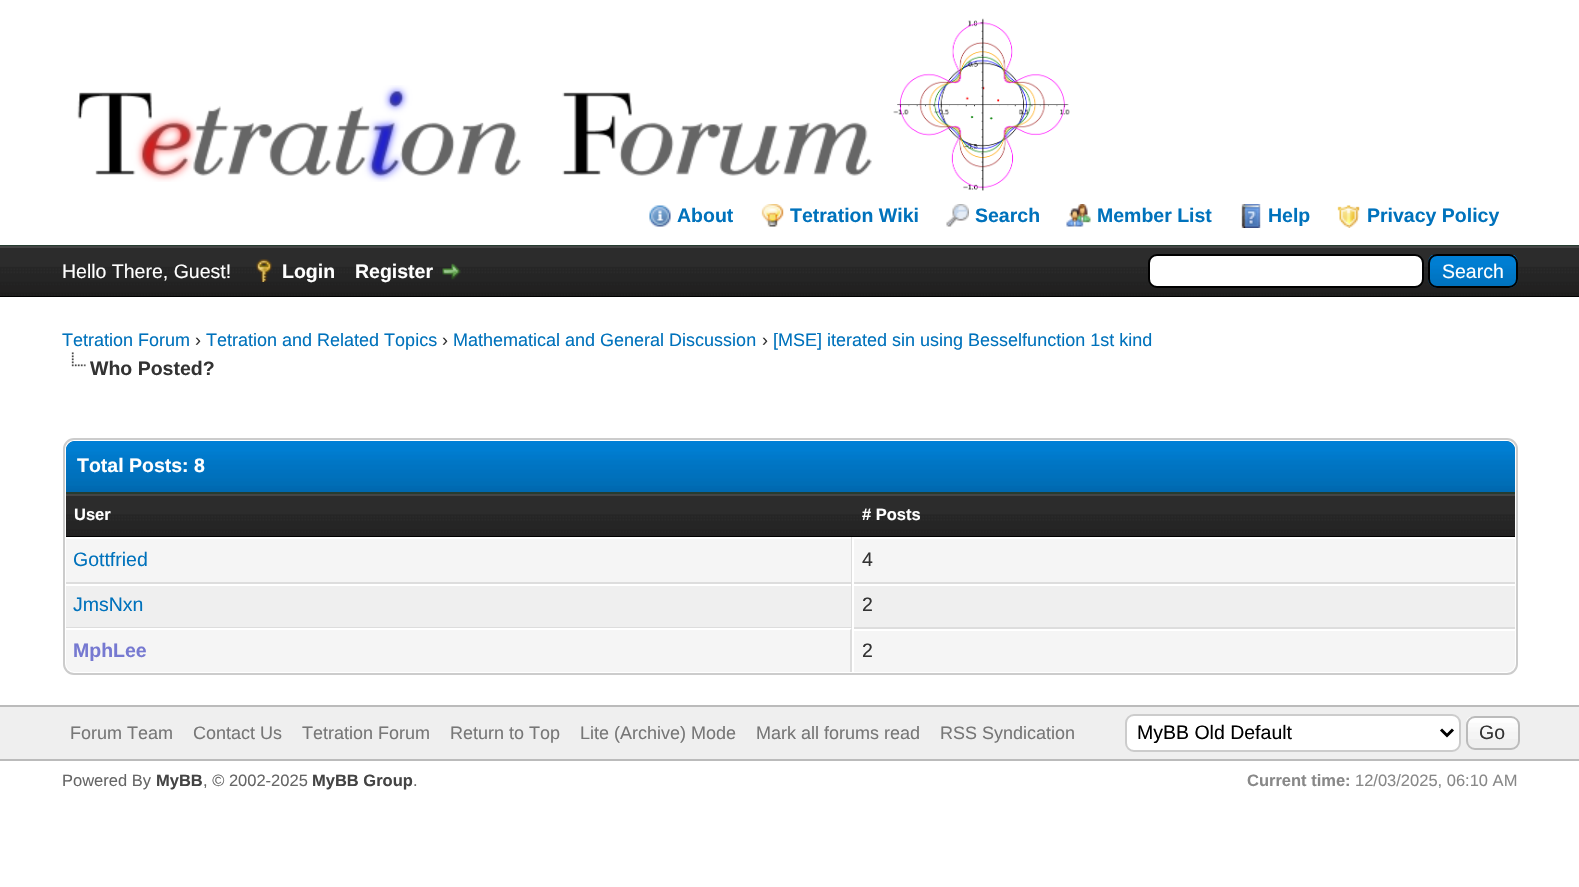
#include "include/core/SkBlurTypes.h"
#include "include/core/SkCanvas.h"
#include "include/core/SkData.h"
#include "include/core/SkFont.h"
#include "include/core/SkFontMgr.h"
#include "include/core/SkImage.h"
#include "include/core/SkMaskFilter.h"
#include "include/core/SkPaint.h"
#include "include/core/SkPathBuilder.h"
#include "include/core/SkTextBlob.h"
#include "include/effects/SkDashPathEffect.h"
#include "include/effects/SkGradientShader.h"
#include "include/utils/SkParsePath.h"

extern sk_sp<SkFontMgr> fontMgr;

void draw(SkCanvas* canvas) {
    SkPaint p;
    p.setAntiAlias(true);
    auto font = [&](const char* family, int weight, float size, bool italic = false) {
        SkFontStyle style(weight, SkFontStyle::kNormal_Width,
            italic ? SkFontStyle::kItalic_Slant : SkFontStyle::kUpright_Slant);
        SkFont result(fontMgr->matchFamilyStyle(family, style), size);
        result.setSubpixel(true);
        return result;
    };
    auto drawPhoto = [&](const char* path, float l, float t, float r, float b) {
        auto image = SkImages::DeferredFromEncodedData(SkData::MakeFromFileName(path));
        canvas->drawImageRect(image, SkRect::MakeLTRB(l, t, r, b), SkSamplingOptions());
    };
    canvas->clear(0xFFFFFFFF);
    p.setColor(0xFF263C30);
    canvas->drawRect(SkRect::MakeLTRB(0, 245, 1579, 246), p);
    drawPhoto("media/1.png", 77, 85, 872, 182);
    drawPhoto("media/2.png", 893, 18, 1070, 191);
    drawPhoto("media/3.png", 649, 205, 671, 227);
    auto font1 = font("Liberation Sans", 700, 19.5f);
    p.setColor(0xFF0072BC);
    canvas->drawString("About", 677, 222, font1, p);
    drawPhoto("media/4.png", 761, 204, 784, 227);
    canvas->drawString("Tetration Wiki", 790, 222, font1, p);
    drawPhoto("media/5.png", 946, 204, 969, 227);
    canvas->drawString("Search", 975, 222, font1, p);
    drawPhoto("media/6.png", 1066, 204, 1091, 227);
    canvas->drawString("Member List", 1097, 222, font1, p);
    drawPhoto("media/7.png", 1241, 204, 1261, 228);
    canvas->drawString("Help", 1268, 222, font1, p);
    drawPhoto("media/8.png", 1337, 205, 1360, 228);
    canvas->drawString("Privacy Policy", 1367, 222, font1, p);
    drawPhoto("media/9.png", 0, 248, 1579, 296);
    p.setColor(0xFF444444);
    canvas->drawRect(SkRect::MakeLTRB(0, 246, 1579, 248), p);
    p.setColor(0xFF000000);
    canvas->drawRect(SkRect::MakeLTRB(0, 296, 1579, 297), p);
    auto font2 = font("Liberation Sans", 400, 19.5f);
    p.setColor(0xFFFFFFFF);
    canvas->drawString("Hello There, Guest!", 62, 278, font2, p);
    drawPhoto("media/10.png", 256, 259, 272, 282);
    canvas->drawString("Login", 282, 278, font1, p);
    canvas->drawString("Register", 355, 278, font1, p);
    drawPhoto("media/11.png", 442, 263, 461, 280);
    canvas->drawRoundRect(SkRect::MakeLTRB(1149, 255, 1423, 287), 8, 8, p);
    p.setStyle(SkPaint::kStroke_Style);
    p.setStrokeWidth(2);
    p.setColor(0xFF000000);
    canvas->drawRoundRect(SkRect::MakeLTRB(1149, 255, 1423, 287), 8, 8, p);
    drawPhoto("media/12.png", 1428, 255, 1518, 288);
    canvas->drawRoundRect(SkRect::MakeLTRB(1429, 255, 1517, 287), 8, 8, p);
    p.setStyle(SkPaint::kFill_Style);
    p.setColor(0xFFFFFFFF);
    canvas->drawString("Search", 1442, 278, font2, p);
    auto font3 = font("Liberation Sans", 400, 18);
    p.setColor(0xFF0072BC);
    canvas->drawString("Tetration Forum", 62, 346, font3, p);
    p.setColor(0xFF333333);
    canvas->drawString("›", 195, 346, font3, p);
    p.setColor(0xFF0072BC);
    canvas->drawString("Tetration and Related Topics", 206, 346, font3, p);
    p.setColor(0xFF333333);
    canvas->drawString("›", 442, 346, font3, p);
    p.setColor(0xFF0072BC);
    canvas->drawString("Mathematical and General Discussion", 453, 346, font3, p);
    p.setColor(0xFF333333);
    canvas->drawString("›", 762, 346, font3, p);
    p.setColor(0xFF0072BC);
    canvas->drawString("[MSE] iterated sin using Besselfunction 1st kind", 773, 346, font3, p);
    drawPhoto("media/13.png", 71, 352, 86, 367);
    p.setColor(0xFF333333);
    canvas->drawString("Who Posted?", 90, 375, font1, p);
    p.setStyle(SkPaint::kStroke_Style);
    p.setColor(0xFFCCCCCC);
    canvas->drawRoundRect(SkRect::MakeLTRB(64, 439, 1517, 674), 10, 10, p);
    p.setStyle(SkPaint::kFill_Style);
    p.setColor(0xFF0066A2);
    canvas->drawPath(SkPathBuilder().moveTo(75, 441).lineTo(1506, 441).cubicTo(1511, 441, 1515, 445, 1515, 450).lineTo(1515, 494).lineTo(66, 494).lineTo(66, 450).cubicTo(66, 445, 70, 441, 75, 441).close().detach(), p);
    drawPhoto("media/14.png", 66, 441, 1515, 492);
    p.setColor(0xFF263C30);
    canvas->drawRect(SkRect::MakeLTRB(66, 492, 1515, 494), p);
    p.setColor(0xFFFFFFFF);
    canvas->drawString("Total Posts: 8", 77, 472, font1, p);
    drawPhoto("media/15.png", 66, 496, 852, 536);
    p.setColor(0xFF444444);
    canvas->drawRect(SkRect::MakeLTRB(66, 494, 1515, 496), p);
    p.setColor(0xFF000000);
    canvas->drawRect(SkRect::MakeLTRB(66, 536, 1515, 537), p);
    auto font4 = font("Liberation Sans", 700, 16.5f);
    p.setColor(0xFFFFFFFF);
    canvas->drawString("User", 74, 520, font4, p);
    drawPhoto("media/16.png", 852, 496, 1515, 536);
    canvas->drawString("# Posts", 862, 520, font4, p);
    {
        const struct { float l, t, r, b; SkColor color; } items[] = {
            {66, 539, 851, 582, 0xFFF5F5F5},
            {851, 537, 852, 629, 0xFFDDDDDD},
            {66, 582, 1515, 584, 0xFFDDDDDD},
        };
        for (auto [l, t, r, b, color] : items) {
            p.setColor(color);
            canvas->drawRect(SkRect::MakeLTRB(l, t, r, b), p);
        }
    }
    p.setColor(0xFF0072BC);
    canvas->drawString("Gottfried", 73, 566, font2, p);
    p.setColor(0xFFF5F5F5);
    canvas->drawRect(SkRect::MakeLTRB(854, 539, 1515, 582), p);
    p.setColor(0xFFFFFFFF);
    canvas->drawRect(SkRect::MakeLTRB(852, 582, 854, 584), p);
    p.setColor(0xFF333333);
    canvas->drawString("4", 862, 566, font2, p);
    p.setColor(0xFFEFEFEF);
    canvas->drawRect(SkRect::MakeLTRB(66, 586, 851, 627), p);
    p.setColor(0xFFDDDDDD);
    canvas->drawRect(SkRect::MakeLTRB(66, 627, 1515, 629), p);
    p.setColor(0xFF0072BC);
    canvas->drawString("JmsNxn", 73, 611, font2, p);
    p.setColor(0xFFEFEFEF);
    canvas->drawRect(SkRect::MakeLTRB(854, 586, 1515, 627), p);
    p.setColor(0xFFFFFFFF);
    canvas->drawRect(SkRect::MakeLTRB(852, 627, 854, 629), p);
    p.setColor(0xFF333333);
    canvas->drawString("2", 862, 611, font2, p);
    p.setColor(0xFFF5F5F5);
    canvas->drawPath(SkPathBuilder().moveTo(66, 629).lineTo(852, 629).lineTo(852, 672).lineTo(75, 672).cubicTo(70, 672, 66, 668, 66, 663).close().detach(), p);
    p.setColor(0xFFFFFFFF);
    canvas->drawPath(SkPathBuilder().moveTo(66, 630).lineTo(850, 630).lineTo(852, 628).lineTo(66, 628).close().detach(), p);
    p.setColor(0xFFDDDDDD);
    canvas->drawPath(SkPathBuilder().moveTo(852, 628).lineTo(850, 630).lineTo(850, 672).lineTo(852, 672).close().detach(), p);
    p.setColor(0xFF7679D1);
    canvas->drawString("MphLee", 73, 657, font1, p);
    p.setColor(0xFFF5F5F5);
    canvas->drawPath(SkPathBuilder().moveTo(852, 629).lineTo(1515, 629).lineTo(1515, 663).cubicTo(1515, 668, 1511, 672, 1506, 672).lineTo(852, 672).close().detach(), p);
    p.setColor(0xFFFFFFFF);
    canvas->drawRect(SkRect::MakeLTRB(852, 629, 1515, 631), p);
    canvas->drawRect(SkRect::MakeLTRB(852, 629, 854, 672), p);
    p.setColor(0xFF333333);
    canvas->drawString("2", 862, 657, font2, p);
    {
        const struct { float l, t, r, b; SkColor color; } items[] = {
            {0, 707, 1579, 759, 0xFFEFEFEF},
            {0, 705, 1579, 707, 0xFFBBBBBB},
            {0, 759, 1579, 761, 0xFFBBBBBB},
        };
        for (auto [l, t, r, b, color] : items) {
            p.setColor(color);
            canvas->drawRect(SkRect::MakeLTRB(l, t, r, b), p);
        }
    }
    p.setColor(0xFF777777);
    {
        const struct { const char* s; float x, y; } items[] = {
            {"Forum Team", 70, 739},
            {"Contact Us", 193, 739},
            {"Tetration Forum", 302, 739},
            {"Return to Top", 450, 739},
            {"Lite (Archive) Mode", 580, 739},
            {"Mark all forums read", 756, 739},
            {"RSS Syndication", 940, 739},
        };
        for (auto [s, x, y] : items) {
            canvas->drawString(s, x, y, font3, p);
        }
    }
    p.setColor(0xFFFFFFFF);
    canvas->drawRoundRect(SkRect::MakeLTRB(1126, 715, 1460, 751), 8, 8, p);
    p.setStyle(SkPaint::kStroke_Style);
    p.setColor(0xFFCCCCCC);
    canvas->drawRoundRect(SkRect::MakeLTRB(1126, 715, 1460, 751), 8, 8, p);
    p.setStrokeWidth(3);
    p.setColor(0xFF000000);
    canvas->drawPath(SkPathBuilder().moveTo(1441, 729.5f).lineTo(1447, 735.5f).lineTo(1453, 729.5f).detach(), p);
    p.setStyle(SkPaint::kFill_Style);
    canvas->drawString("MyBB Old Default", 1137, 739, font2, p);
    drawPhoto("media/17.png", 1466, 717, 1519, 739);
    p.setStyle(SkPaint::kStroke_Style);
    p.setStrokeWidth(2);
    p.setColor(0xFFBBBBBB);
    canvas->drawRoundRect(SkRect::MakeLTRB(1467, 717, 1519, 749), 8, 8, p);
    p.setStyle(SkPaint::kFill_Style);
    p.setColor(0xFF333333);
    canvas->drawString("Go", 1479, 739, font2, p);
    auto font5 = font("Liberation Sans", 400, 16.5f);
    p.setColor(0xFF666666);
    canvas->drawString("Powered By", 62, 786, font5, p);
    p.setColor(0xFF444444);
    canvas->drawString("MyBB", 156, 786, font4, p);
    p.setColor(0xFF666666);
    canvas->drawString(", © 2002-2025", 203, 786, font5, p);
    p.setColor(0xFF444444);
    canvas->drawString("MyBB Group", 312, 786, font4, p);
    p.setColor(0xFF666666);
    canvas->drawString(".", 413, 786, font5, p);
    p.setColor(0xFF888888);
    canvas->drawString("Current time:", 1247, 786, font4, p);
    canvas->drawString("12/03/2025, 06:10 AM", 1355, 786, font5, p);
}
